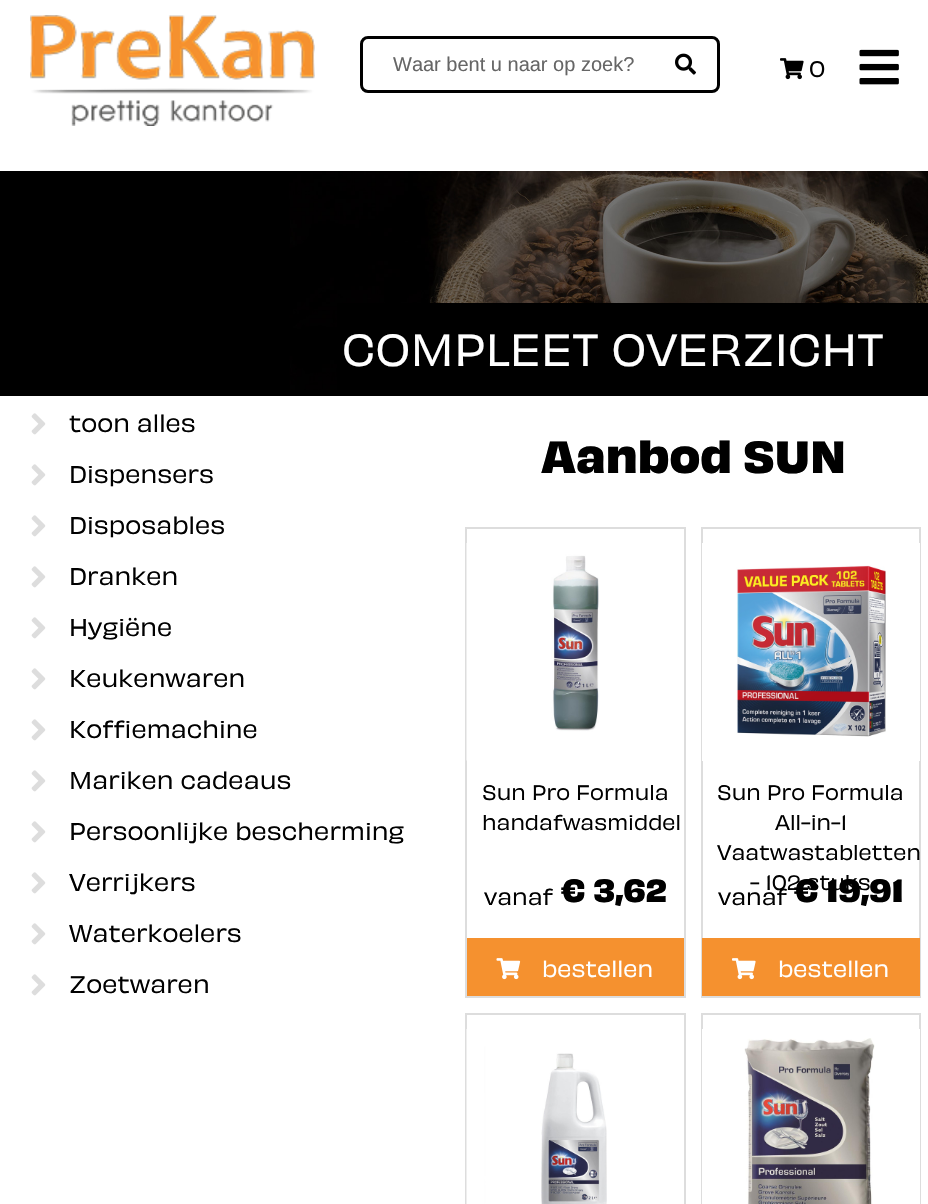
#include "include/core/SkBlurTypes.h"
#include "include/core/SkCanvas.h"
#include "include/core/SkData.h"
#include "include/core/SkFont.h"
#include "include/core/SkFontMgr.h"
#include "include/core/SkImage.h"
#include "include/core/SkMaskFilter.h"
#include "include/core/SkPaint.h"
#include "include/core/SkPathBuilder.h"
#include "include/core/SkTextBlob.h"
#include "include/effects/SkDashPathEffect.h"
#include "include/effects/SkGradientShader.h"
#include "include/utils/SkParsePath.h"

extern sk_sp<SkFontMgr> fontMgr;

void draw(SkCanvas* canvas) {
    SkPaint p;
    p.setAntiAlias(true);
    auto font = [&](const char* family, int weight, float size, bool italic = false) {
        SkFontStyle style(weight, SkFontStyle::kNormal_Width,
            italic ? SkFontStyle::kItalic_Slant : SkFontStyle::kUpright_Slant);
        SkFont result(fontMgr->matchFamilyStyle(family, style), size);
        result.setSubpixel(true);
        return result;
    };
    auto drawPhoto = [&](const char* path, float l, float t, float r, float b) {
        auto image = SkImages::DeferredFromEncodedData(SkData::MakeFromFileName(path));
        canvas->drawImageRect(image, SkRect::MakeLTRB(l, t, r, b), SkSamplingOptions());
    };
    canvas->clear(0xFFFFFFFF);
    drawPhoto("media/1.png", 30, 15, 315, 126);
    p.setStyle(SkPaint::kStroke_Style);
    p.setStrokeWidth(3);
    p.setColor(0xFF000000);
    canvas->drawRoundRect(SkRect::MakeLTRB(361.5f, 37.5f, 718.5f, 91.5f), 6.5f, 6.5f, p);
    auto font1 = font("Liberation Sans", 400, 20);
    p.setStyle(SkPaint::kFill_Style);
    p.setColor(0xFF666666);
    canvas->drawString("Waar bent u naar op zoek?", 393, 71, font1, p);
    drawPhoto("media/2.png", 675, 53, 696, 75);
    drawPhoto("media/3.png", 780, 58, 804, 80);
    auto font2 = font("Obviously", 600, 21);
    p.setColor(0xFF000000);
    canvas->drawString("0", 809, 77, font2, p);
    drawPhoto("media/4.png", 859, 49, 899, 85);
    drawPhoto("media/5.png", 0, 171, 928, 390);
    canvas->drawRect(SkRect::MakeLTRB(0, 390, 928, 396), p);
    canvas->drawRect(SkRect::MakeLTRB(337, 303, 928, 390), p);
    auto font3 = font("Obviously", 600, 42);
    p.setColor(0xFFFFFFFF);
    canvas->drawString("COMPLEET OVERZICHT", 342, 366, font3, p);
    drawPhoto("media/6.png", 31, 413, 46, 435);
    auto font4 = font("Obviously", 600, 22.5f);
    p.setColor(0xFF000000);
    canvas->drawString("toon alles", 69, 432, font4, p);
    drawPhoto("media/6.png", 31, 464, 46, 486);
    canvas->drawString("Dispensers", 69, 483, font4, p);
    drawPhoto("media/6.png", 31, 515, 46, 537);
    canvas->drawString("Disposables", 69, 534, font4, p);
    drawPhoto("media/6.png", 31, 566, 46, 588);
    canvas->drawString("Dranken", 69, 585, font4, p);
    drawPhoto("media/6.png", 31, 617, 46, 639);
    canvas->drawString("Hygiëne", 69, 636, font4, p);
    drawPhoto("media/6.png", 31, 668, 46, 690);
    canvas->drawString("Keukenwaren", 69, 687, font4, p);
    drawPhoto("media/6.png", 31, 719, 46, 741);
    canvas->drawString("Koffiemachine", 69, 738, font4, p);
    drawPhoto("media/6.png", 31, 770, 46, 792);
    canvas->drawString("Mariken cadeaus", 69, 789, font4, p);
    drawPhoto("media/6.png", 31, 821, 46, 843);
    canvas->drawString("Persoonlijke bescherming", 69, 840, font4, p);
    drawPhoto("media/6.png", 31, 872, 46, 894);
    canvas->drawString("Verrijkers", 69, 891, font4, p);
    drawPhoto("media/6.png", 31, 923, 46, 945);
    canvas->drawString("Waterkoelers", 69, 942, font4, p);
    drawPhoto("media/6.png", 31, 974, 46, 996);
    canvas->drawString("Zoetwaren", 69, 993, font4, p);
    auto font5 = font("Obviously", 700, 42);
    canvas->drawString("Aanbod SUN", 541, 473, font5, p);
    p.setStyle(SkPaint::kStroke_Style);
    p.setStrokeWidth(2);
    p.setColor(0xFFDDDDDD);
    canvas->drawRect(SkRect::MakeLTRB(466, 528, 685, 997), p);
    drawPhoto("media/7.png", 466, 543, 599, 761);
    auto font6 = font("Obviously", 600, 19.5f);
    p.setStyle(SkPaint::kFill_Style);
    p.setColor(0xFF000000);
    canvas->drawString("Sun Pro Formula", 482, 800, font6, p);
    canvas->drawString("handafwasmiddel", 482, 830, font6, p);
    canvas->drawString("vanaf", 484, 905, font2, p);
    auto font7 = font("Obviously", 700, 30);
    canvas->drawString("€ 3,62", 561, 902, font7, p);
    p.setColor(0xFFF5912F);
    canvas->drawRect(SkRect::MakeLTRB(467, 938, 684, 996), p);
    drawPhoto("media/8.png", 496, 958, 521, 980);
    p.setColor(0xFFFFFFFF);
    canvas->drawString("bestellen", 542, 977, font2, p);
    p.setStyle(SkPaint::kStroke_Style);
    p.setColor(0xFFDDDDDD);
    canvas->drawRect(SkRect::MakeLTRB(702, 528, 920, 997), p);
    p.setStyle(SkPaint::kFill_Style);
    p.setColor(0xFFFFFFFF);
    canvas->drawRect(SkRect::MakeLTRB(702, 543, 920, 761), p);
    drawPhoto("media/9.png", 736, 565, 886, 737);
    p.setColor(0xFF000000);
    {
        const struct { const char* s; float x, y; } items[] = {
            {"Sun Pro Formula", 717, 800},
            {"All-in-1", 775, 830},
            {"Vaatwastabletten", 717, 860},
            {"- 102 stuks", 750, 890},
        };
        for (auto [s, x, y] : items) {
            canvas->drawString(s, x, y, font6, p);
        }
    }
    canvas->drawString("vanaf", 718, 905, font2, p);
    canvas->drawString("€ 19,91", 794, 902, font7, p);
    p.setColor(0xFFF5912F);
    canvas->drawRect(SkRect::MakeLTRB(702, 938, 920, 996), p);
    drawPhoto("media/10.png", 732, 958, 756, 980);
    p.setColor(0xFFFFFFFF);
    canvas->drawString("bestellen", 778, 977, font2, p);
    p.setStyle(SkPaint::kStroke_Style);
    p.setColor(0xFFDDDDDD);
    canvas->drawRect(SkRect::MakeLTRB(466, 1014, 685, 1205), p);
    drawPhoto("media/11.png", 466, 1029, 607, 1204);
    canvas->drawRect(SkRect::MakeLTRB(702, 1014, 920, 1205), p);
    p.setStyle(SkPaint::kFill_Style);
    p.setColor(0xFFFFFFFF);
    canvas->drawRect(SkRect::MakeLTRB(702, 1029, 920, 1204), p);
    drawPhoto("media/12.png", 744, 1038, 875, 1204);
}
